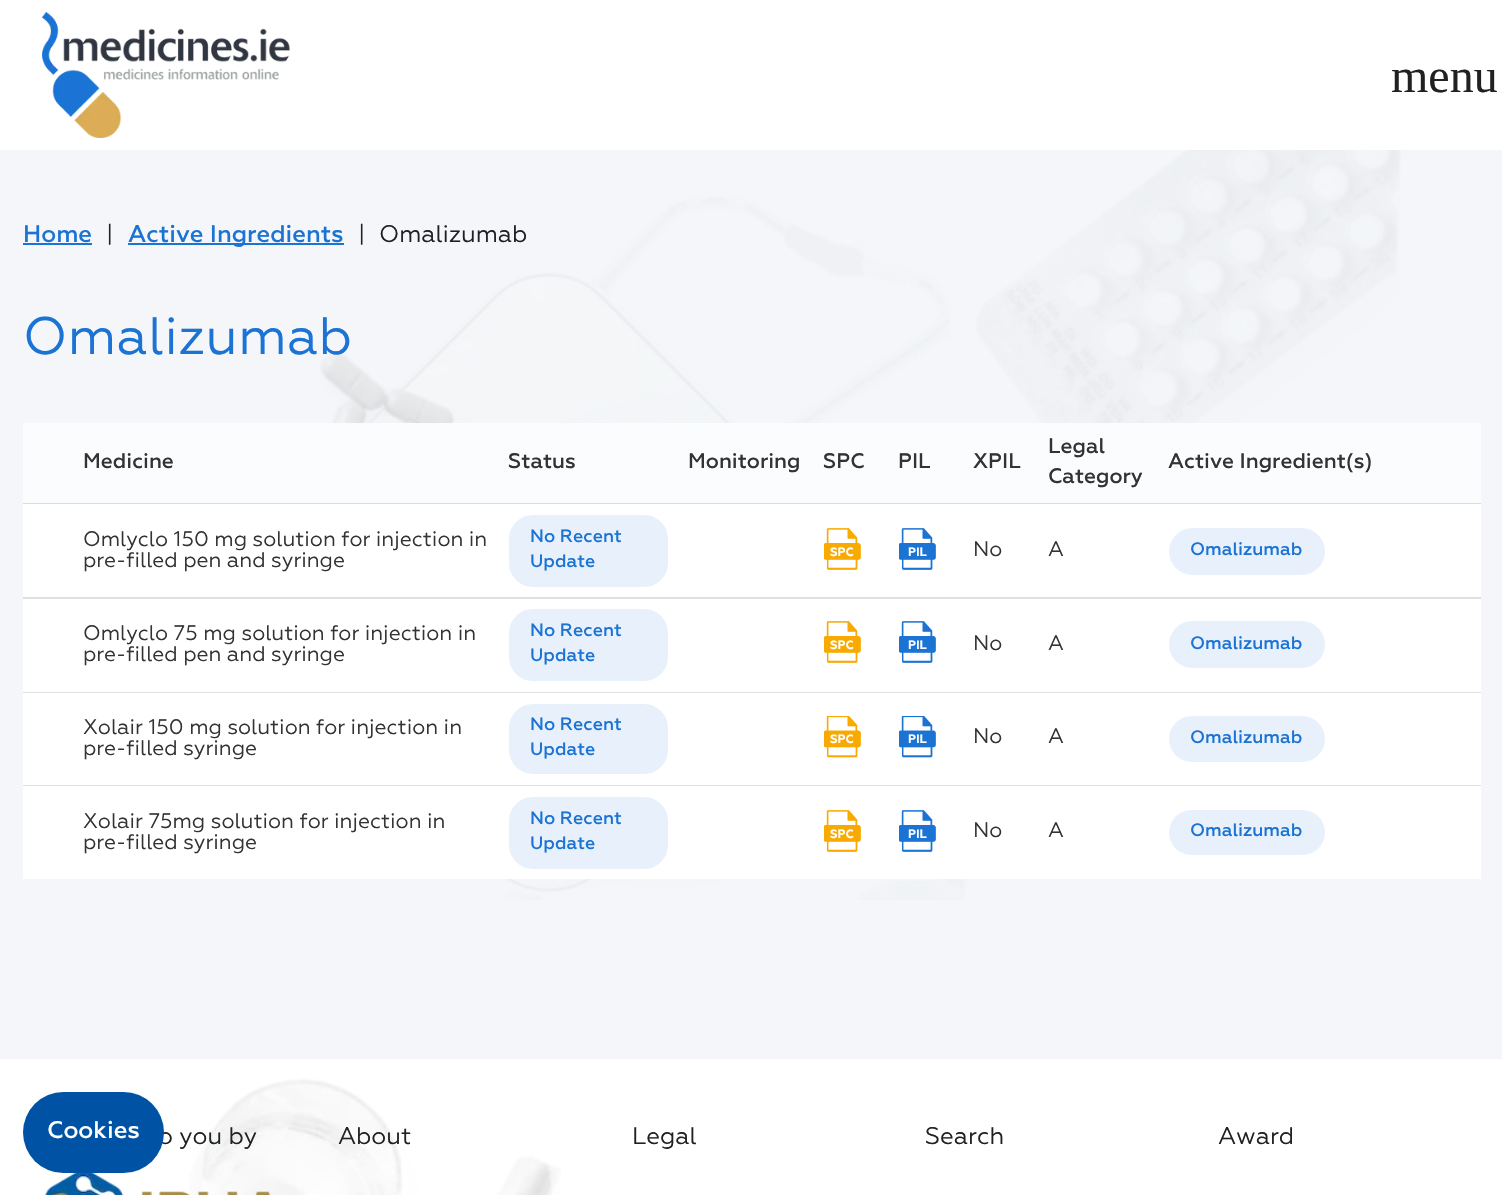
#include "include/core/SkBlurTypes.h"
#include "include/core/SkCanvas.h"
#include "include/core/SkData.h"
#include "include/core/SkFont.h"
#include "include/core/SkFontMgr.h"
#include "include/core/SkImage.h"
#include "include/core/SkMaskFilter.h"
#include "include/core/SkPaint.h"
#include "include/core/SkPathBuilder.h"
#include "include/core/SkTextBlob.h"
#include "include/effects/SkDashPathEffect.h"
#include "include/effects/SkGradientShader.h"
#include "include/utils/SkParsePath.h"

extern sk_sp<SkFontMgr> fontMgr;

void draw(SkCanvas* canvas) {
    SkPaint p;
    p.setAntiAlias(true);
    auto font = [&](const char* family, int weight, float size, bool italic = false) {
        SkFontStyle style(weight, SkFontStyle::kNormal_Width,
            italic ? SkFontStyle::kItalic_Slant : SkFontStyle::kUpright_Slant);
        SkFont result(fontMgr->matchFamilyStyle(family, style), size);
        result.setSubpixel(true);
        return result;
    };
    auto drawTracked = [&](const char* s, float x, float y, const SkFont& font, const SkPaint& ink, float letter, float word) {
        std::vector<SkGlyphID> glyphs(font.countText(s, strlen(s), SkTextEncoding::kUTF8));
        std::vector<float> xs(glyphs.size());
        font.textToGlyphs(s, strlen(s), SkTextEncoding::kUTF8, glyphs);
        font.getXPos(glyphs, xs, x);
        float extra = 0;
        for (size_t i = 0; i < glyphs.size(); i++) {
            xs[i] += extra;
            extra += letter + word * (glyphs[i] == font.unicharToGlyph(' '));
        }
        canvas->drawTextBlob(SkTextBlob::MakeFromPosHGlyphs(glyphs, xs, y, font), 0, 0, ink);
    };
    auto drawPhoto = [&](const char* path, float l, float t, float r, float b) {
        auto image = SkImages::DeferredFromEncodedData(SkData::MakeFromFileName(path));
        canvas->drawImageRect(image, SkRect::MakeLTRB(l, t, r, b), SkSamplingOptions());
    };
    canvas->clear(0xFFF4F6F9);
    drawPhoto("media/1.png", 319, 150, 1401, 900);
    p.setColor(0xFFFFFFFF);
    canvas->drawRect(SkRect::MakeLTRB(0, 0, 1502, 150), p);
    drawPhoto("media/2.png", 42, 12, 290, 138);
    auto font1 = font("Liberation Serif", 400, 48);
    p.setColor(0xFF212121);
    canvas->drawString("menu", 1391, 92, font1, p);
    auto font2 = font("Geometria", 500, 24);
    p.setColor(0xFF1B73D4);
    canvas->drawString("Home", 23, 242, font2, p);
    canvas->drawRect(SkRect::MakeLTRB(23, 243, 92, 245), p);
    auto font3 = font("Geometria", 400, 24);
    p.setColor(0xFF212121);
    canvas->drawString("|", 106, 242, font3, p);
    p.setColor(0xFF1B73D4);
    canvas->drawRect(SkRect::MakeLTRB(128, 243, 344, 245), p);
    canvas->drawString("Active Ingredients", 128, 242, font2, p);
    p.setColor(0xFF212121);
    canvas->drawString("|", 358, 242, font3, p);
    canvas->drawString("Omalizumab", 379, 242, font3, p);
    auto font4 = font("Geometria", 400, 52.5f);
    p.setColor(0xFF1B73D4);
    drawTracked("Omalizumab", 23, 354, font4, p, 0.5f, 0);
    {
        const struct { float l, t, r, b; SkColor color; } items[] = {
            {23, 599, 1481, 692, 0xFFFFFFFF},
            {23, 423, 1481, 504, 0xFFFAFCFD},
            {23, 503, 1481, 504, 0x1F000000},
        };
        for (auto [l, t, r, b, color] : items) {
            p.setColor(color);
            canvas->drawRect(SkRect::MakeLTRB(l, t, r, b), p);
        }
    }
    auto font5 = font("Geometria", 500, 21);
    p.setColor(0xFF333333);
    {
        const struct { const char* s; float x, y; } items[] = {
            {"Medicine", 83, 468},
            {"Status", 508, 468},
            {"Monitoring", 688, 468},
            {"SPC", 823, 468},
            {"PIL", 898, 468},
            {"XPIL", 973, 468},
            {"Legal", 1048, 453},
            {"Category", 1048, 483},
            {"Active Ingredient(s)", 1168, 468},
        };
        for (auto [s, x, y] : items) {
            canvas->drawString(s, x, y, font5, p);
        }
    }
    p.setColor(0xFFFFFFFF);
    canvas->drawRect(SkRect::MakeLTRB(23, 504, 1481, 597), p);
    p.setColor(0xFFE0E0E0);
    canvas->drawRect(SkRect::MakeLTRB(23, 597, 1481, 599), p);
    auto font6 = font("Geometria", 400, 21);
    p.setColor(0xFF333333);
    canvas->drawString("Omlyclo 150 mg solution for injection in", 83, 546, font6, p);
    canvas->drawString("pre-filled pen and syringe", 83, 567, font6, p);
    p.setColor(0xFFE8F1FB);
    canvas->drawRoundRect(SkRect::MakeLTRB(509, 515, 668, 587), 24, 24, p);
    auto font7 = font("Geometria", 500, 18);
    p.setColor(0xFF1B73D4);
    canvas->drawString("No Recent", 530, 542, font7, p);
    canvas->drawString("Update", 530, 567, font7, p);
    drawPhoto("media/3.png", 824, 528, 861, 570);
    auto font8 = font("Geometria", 700, 12);
    p.setColor(0xFFFFFFFF);
    canvas->drawString("SPC", 830, 556, font8, p);
    drawPhoto("media/4.png", 899, 528, 936, 570);
    canvas->drawString("PIL", 908, 556, font8, p);
    p.setColor(0xFF333333);
    canvas->drawString("No", 973, 556, font6, p);
    canvas->drawString("A", 1048, 556, font6, p);
    p.setColor(0xFFE8F1FB);
    canvas->drawRoundRect(SkRect::MakeLTRB(1169, 528, 1325, 575), 23.5f, 23.5f, p);
    p.setColor(0xFF1B73D4);
    canvas->drawString("Omalizumab", 1190, 555, font7, p);
    p.setColor(0xFFE0E0E0);
    canvas->drawRect(SkRect::MakeLTRB(23, 692, 1481, 693), p);
    p.setColor(0xFF333333);
    canvas->drawString("Omlyclo 75 mg solution for injection in", 83, 640, font6, p);
    canvas->drawString("pre-filled pen and syringe", 83, 661, font6, p);
    p.setColor(0xFFE8F1FB);
    canvas->drawRoundRect(SkRect::MakeLTRB(509, 609, 668, 681), 24, 24, p);
    p.setColor(0xFF1B73D4);
    canvas->drawString("No Recent", 530, 636, font7, p);
    canvas->drawString("Update", 530, 661, font7, p);
    drawPhoto("media/3.png", 824, 621, 861, 663);
    p.setColor(0xFFFFFFFF);
    canvas->drawString("SPC", 830, 649, font8, p);
    drawPhoto("media/4.png", 899, 621, 936, 663);
    canvas->drawString("PIL", 908, 649, font8, p);
    p.setColor(0xFF333333);
    canvas->drawString("No", 973, 650, font6, p);
    canvas->drawString("A", 1048, 650, font6, p);
    p.setColor(0xFFE8F1FB);
    canvas->drawRoundRect(SkRect::MakeLTRB(1169, 621, 1325, 668), 23.5f, 23.5f, p);
    p.setColor(0xFF1B73D4);
    canvas->drawString("Omalizumab", 1190, 649, font7, p);
    p.setColor(0xFFFFFFFF);
    canvas->drawRect(SkRect::MakeLTRB(23, 693, 1481, 785), p);
    p.setColor(0xFFE0E0E0);
    canvas->drawRect(SkRect::MakeLTRB(23, 785, 1481, 786), p);
    p.setColor(0xFF333333);
    canvas->drawString("Xolair 150 mg solution for injection in", 83, 734, font6, p);
    canvas->drawString("pre-filled syringe", 83, 755, font6, p);
    p.setColor(0xFFE8F1FB);
    canvas->drawRoundRect(SkRect::MakeLTRB(509, 704, 668, 774), 24, 24, p);
    p.setColor(0xFF1B73D4);
    canvas->drawString("No Recent", 530, 730, font7, p);
    canvas->drawString("Update", 530, 755, font7, p);
    drawPhoto("media/5.png", 824, 716, 861, 758);
    p.setColor(0xFFFFFFFF);
    canvas->drawString("SPC", 830, 743, font8, p);
    drawPhoto("media/6.png", 899, 716, 936, 758);
    canvas->drawString("PIL", 908, 743, font8, p);
    p.setColor(0xFF333333);
    canvas->drawString("No", 973, 743, font6, p);
    canvas->drawString("A", 1048, 743, font6, p);
    p.setColor(0xFFE8F1FB);
    canvas->drawRoundRect(SkRect::MakeLTRB(1169, 716, 1325, 762), 23, 23, p);
    p.setColor(0xFF1B73D4);
    canvas->drawString("Omalizumab", 1190, 743, font7, p);
    p.setColor(0xFFFFFFFF);
    canvas->drawRect(SkRect::MakeLTRB(23, 786, 1481, 879), p);
    p.setColor(0xFF333333);
    canvas->drawString("Xolair 75mg solution for injection in", 83, 828, font6, p);
    canvas->drawString("pre-filled syringe", 83, 849, font6, p);
    p.setColor(0xFFE8F1FB);
    canvas->drawRoundRect(SkRect::MakeLTRB(509, 797, 668, 869), 24, 24, p);
    p.setColor(0xFF1B73D4);
    canvas->drawString("No Recent", 530, 824, font7, p);
    canvas->drawString("Update", 530, 849, font7, p);
    drawPhoto("media/3.png", 824, 810, 861, 852);
    p.setColor(0xFFFFFFFF);
    canvas->drawString("SPC", 830, 838, font8, p);
    drawPhoto("media/4.png", 899, 810, 936, 852);
    canvas->drawString("PIL", 908, 838, font8, p);
    p.setColor(0xFF333333);
    canvas->drawString("No", 973, 837, font6, p);
    canvas->drawString("A", 1048, 837, font6, p);
    p.setColor(0xFFE8F1FB);
    canvas->drawRoundRect(SkRect::MakeLTRB(1169, 810, 1325, 855), 22.5f, 22.5f, p);
    p.setColor(0xFF1B73D4);
    canvas->drawString("Omalizumab", 1190, 836, font7, p);
    p.setColor(0xFFFFFFFF);
    canvas->drawRect(SkRect::MakeLTRB(0, 1059, 1502, 1195), p);
    drawPhoto("media/7.png", 189, 1078, 561, 1195);
    p.setColor(0xFF212121);
    canvas->drawString("o you by", 158, 1144, font3, p);
    drawPhoto("media/8.png", 45, 1173, 271, 1195);
    {
        const struct { const char* s; float x, y; } items[] = {
            {"About", 338, 1144},
            {"Legal", 632, 1144},
            {"Search", 925, 1144},
            {"Award", 1218, 1144},
        };
        for (auto [s, x, y] : items) {
            canvas->drawString(s, x, y, font3, p);
        }
    }
    p.setColor(0xFF0052A5);
    canvas->drawRoundRect(SkRect::MakeLTRB(23, 1092, 164, 1173), 40.5f, 40.5f, p);
    p.setColor(0xFFFFFFFF);
    canvas->drawString("Cookies", 47, 1138, font2, p);
}
